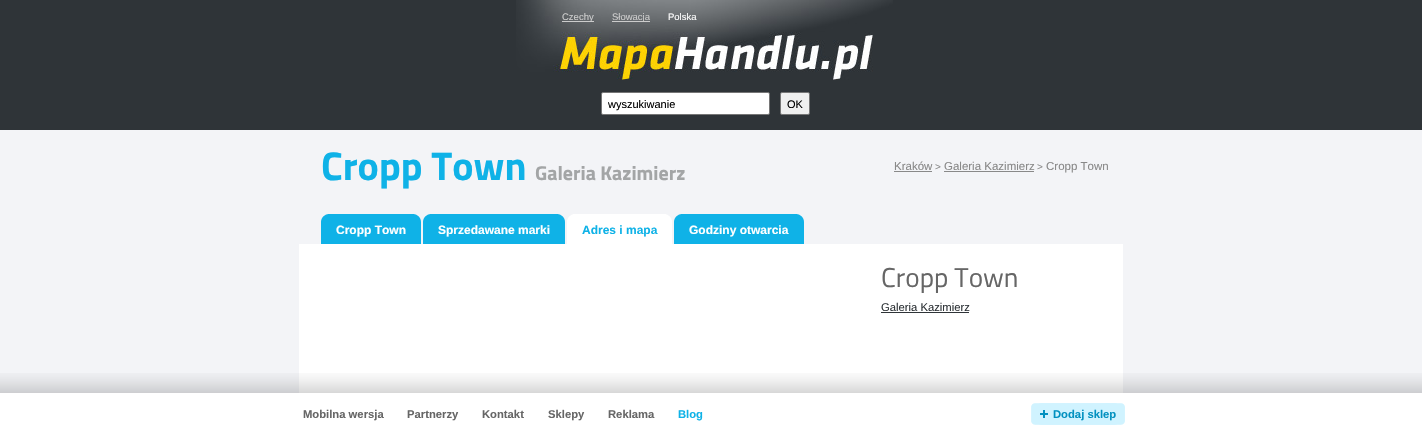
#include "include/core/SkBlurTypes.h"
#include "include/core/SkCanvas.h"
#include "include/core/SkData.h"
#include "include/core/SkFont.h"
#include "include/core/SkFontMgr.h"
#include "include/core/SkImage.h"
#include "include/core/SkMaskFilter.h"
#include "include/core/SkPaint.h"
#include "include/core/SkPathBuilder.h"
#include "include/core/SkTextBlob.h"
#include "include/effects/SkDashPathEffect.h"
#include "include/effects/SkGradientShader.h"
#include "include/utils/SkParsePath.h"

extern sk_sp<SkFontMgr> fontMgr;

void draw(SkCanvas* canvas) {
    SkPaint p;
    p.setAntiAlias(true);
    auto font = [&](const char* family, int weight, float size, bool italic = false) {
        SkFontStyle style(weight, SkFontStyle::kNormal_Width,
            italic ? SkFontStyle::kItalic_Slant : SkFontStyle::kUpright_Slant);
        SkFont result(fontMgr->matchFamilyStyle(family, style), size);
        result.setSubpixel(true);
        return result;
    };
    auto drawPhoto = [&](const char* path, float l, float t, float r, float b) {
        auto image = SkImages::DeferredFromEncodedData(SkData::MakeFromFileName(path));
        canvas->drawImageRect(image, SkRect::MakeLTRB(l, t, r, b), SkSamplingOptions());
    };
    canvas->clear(0xFFF3F4F7);
    p.setColor(0xFF2F3438);
    canvas->drawRect(SkRect::MakeLTRB(0, 0, 1422, 130), p);
    drawPhoto("media/1.png", 516, 0, 893, 80);
    p.setColor(0xFFCCCCCC);
    canvas->drawRect(SkRect::MakeLTRB(562, 21, 594, 22), p);
    auto font1 = font("Liberation Sans", 400, 9.5f);
    canvas->drawString("Czechy", 562, 20, font1, p);
    canvas->drawRect(SkRect::MakeLTRB(612, 21, 650, 22), p);
    canvas->drawString("Słowacja", 612, 20, font1, p);
    p.setColor(0xFFFFFFFF);
    canvas->drawString("Polska", 668, 20, font1, p);
    canvas->drawRoundRect(SkRect::MakeLTRB(601.5f, 92.5f, 769.5f, 114.5f), 1.5f, 1.5f, p);
    p.setStyle(SkPaint::kStroke_Style);
    p.setStrokeWidth(1);
    p.setColor(0xFF767676);
    canvas->drawRoundRect(SkRect::MakeLTRB(601.5f, 92.5f, 769.5f, 114.5f), 1.5f, 1.5f, p);
    auto font2 = font("Liberation Sans", 400, 11);
    p.setStyle(SkPaint::kFill_Style);
    p.setColor(0xFF000000);
    canvas->drawString("wyszukiwanie", 608, 108, font2, p);
    p.setColor(0xFFEFEFEF);
    canvas->drawRoundRect(SkRect::MakeLTRB(780.5f, 92.5f, 809.5f, 114.5f), 1.5f, 1.5f, p);
    p.setStyle(SkPaint::kStroke_Style);
    p.setColor(0xFF767676);
    canvas->drawRoundRect(SkRect::MakeLTRB(780.5f, 92.5f, 809.5f, 114.5f), 1.5f, 1.5f, p);
    p.setStyle(SkPaint::kFill_Style);
    p.setColor(0xFF000000);
    canvas->drawString("OK", 787, 108, font2, p);
    auto font3 = font("Titillium Web", 700, 40);
    p.setColor(0xFF0FB2E7);
    canvas->drawString("Cropp Town", 321, 180, font3, p);
    auto font4 = font("Titillium Web", 700, 20);
    p.setColor(0xFFA3A5A6);
    canvas->drawString("Galeria Kazimierz", 535, 180, font4, p);
    auto font5 = font("Liberation Sans", 400, 11.5f);
    p.setColor(0xFF898989);
    canvas->drawString("Kraków", 894, 170, font5, p);
    canvas->drawRect(SkRect::MakeLTRB(894, 171, 932, 172), p);
    auto font6 = font("Liberation Sans", 400, 10);
    canvas->drawString(">", 935, 170, font6, p);
    canvas->drawString("Galeria Kazimierz", 944, 170, font5, p);
    canvas->drawRect(SkRect::MakeLTRB(944, 171, 1034, 172), p);
    canvas->drawString(">", 1037, 170, font6, p);
    canvas->drawString("Cropp Town", 1046, 170, font5, p);
    p.setColor(0xFF0FB2E7);
    canvas->drawRect(SkRect::MakeLTRB(321, 214, 421, 244), p);
    drawPhoto("media/2.png", 321, 214, 328, 222);
    drawPhoto("media/3.png", 414, 214, 421, 222);
    auto font7 = font("Liberation Sans", 700, 12);
    p.setColor(0xFFFFFFFF);
    canvas->drawString("Cropp Town", 336, 234, font7, p);
    p.setColor(0xFF0FB2E7);
    canvas->drawRect(SkRect::MakeLTRB(423, 214, 565, 244), p);
    drawPhoto("media/2.png", 423, 214, 430, 222);
    drawPhoto("media/3.png", 558, 214, 565, 222);
    p.setColor(0xFFFFFFFF);
    canvas->drawString("Sprzedawane marki", 438, 234, font7, p);
    canvas->drawRect(SkRect::MakeLTRB(567, 214, 672, 244), p);
    drawPhoto("media/4.png", 567, 214, 573, 220);
    drawPhoto("media/5.png", 666, 214, 672, 220);
    p.setColor(0xFF0FB2E7);
    canvas->drawString("Adres i mapa", 582, 234, font7, p);
    canvas->drawRect(SkRect::MakeLTRB(674, 214, 804, 244), p);
    drawPhoto("media/2.png", 674, 214, 681, 222);
    drawPhoto("media/3.png", 797, 214, 804, 222);
    p.setColor(0xFFFFFFFF);
    canvas->drawString("Godziny otwarcia", 689, 234, font7, p);
    canvas->drawRect(SkRect::MakeLTRB(299, 244, 1123, 393), p);
    auto font8 = font("Titillium Web", 400, 27.25f);
    p.setColor(0xFF666666);
    canvas->drawString("Cropp Town", 881, 287, font8, p);
    auto font9 = font("Liberation Sans", 400, 11.25f);
    p.setColor(0xFF2F3438);
    canvas->drawString("Galeria Kazimierz", 881, 311, font9, p);
    canvas->drawRect(SkRect::MakeLTRB(881, 312, 969, 313), p);
    drawPhoto("media/6.png", 0, 373, 1422, 433);
    auto font10 = font("Liberation Sans", 700, 11.25f);
    p.setColor(0xFF666666);
    {
        const struct { const char* s; float x, y; } items[] = {
            {"Mobilna wersja", 303, 418},
            {"Partnerzy", 407, 418},
            {"Kontakt", 482, 418},
            {"Sklepy", 548, 418},
            {"Reklama", 608, 418},
        };
        for (auto [s, x, y] : items) {
            canvas->drawString(s, x, y, font10, p);
        }
    }
    p.setColor(0xFF0FB2E7);
    canvas->drawString("Blog", 678, 418, font10, p);
    drawPhoto("media/7.png", 1031, 403, 1125, 425);
    p.setColor(0xFF0291C0);
    canvas->drawString("Dodaj sklep", 1053, 418, font10, p);
}
